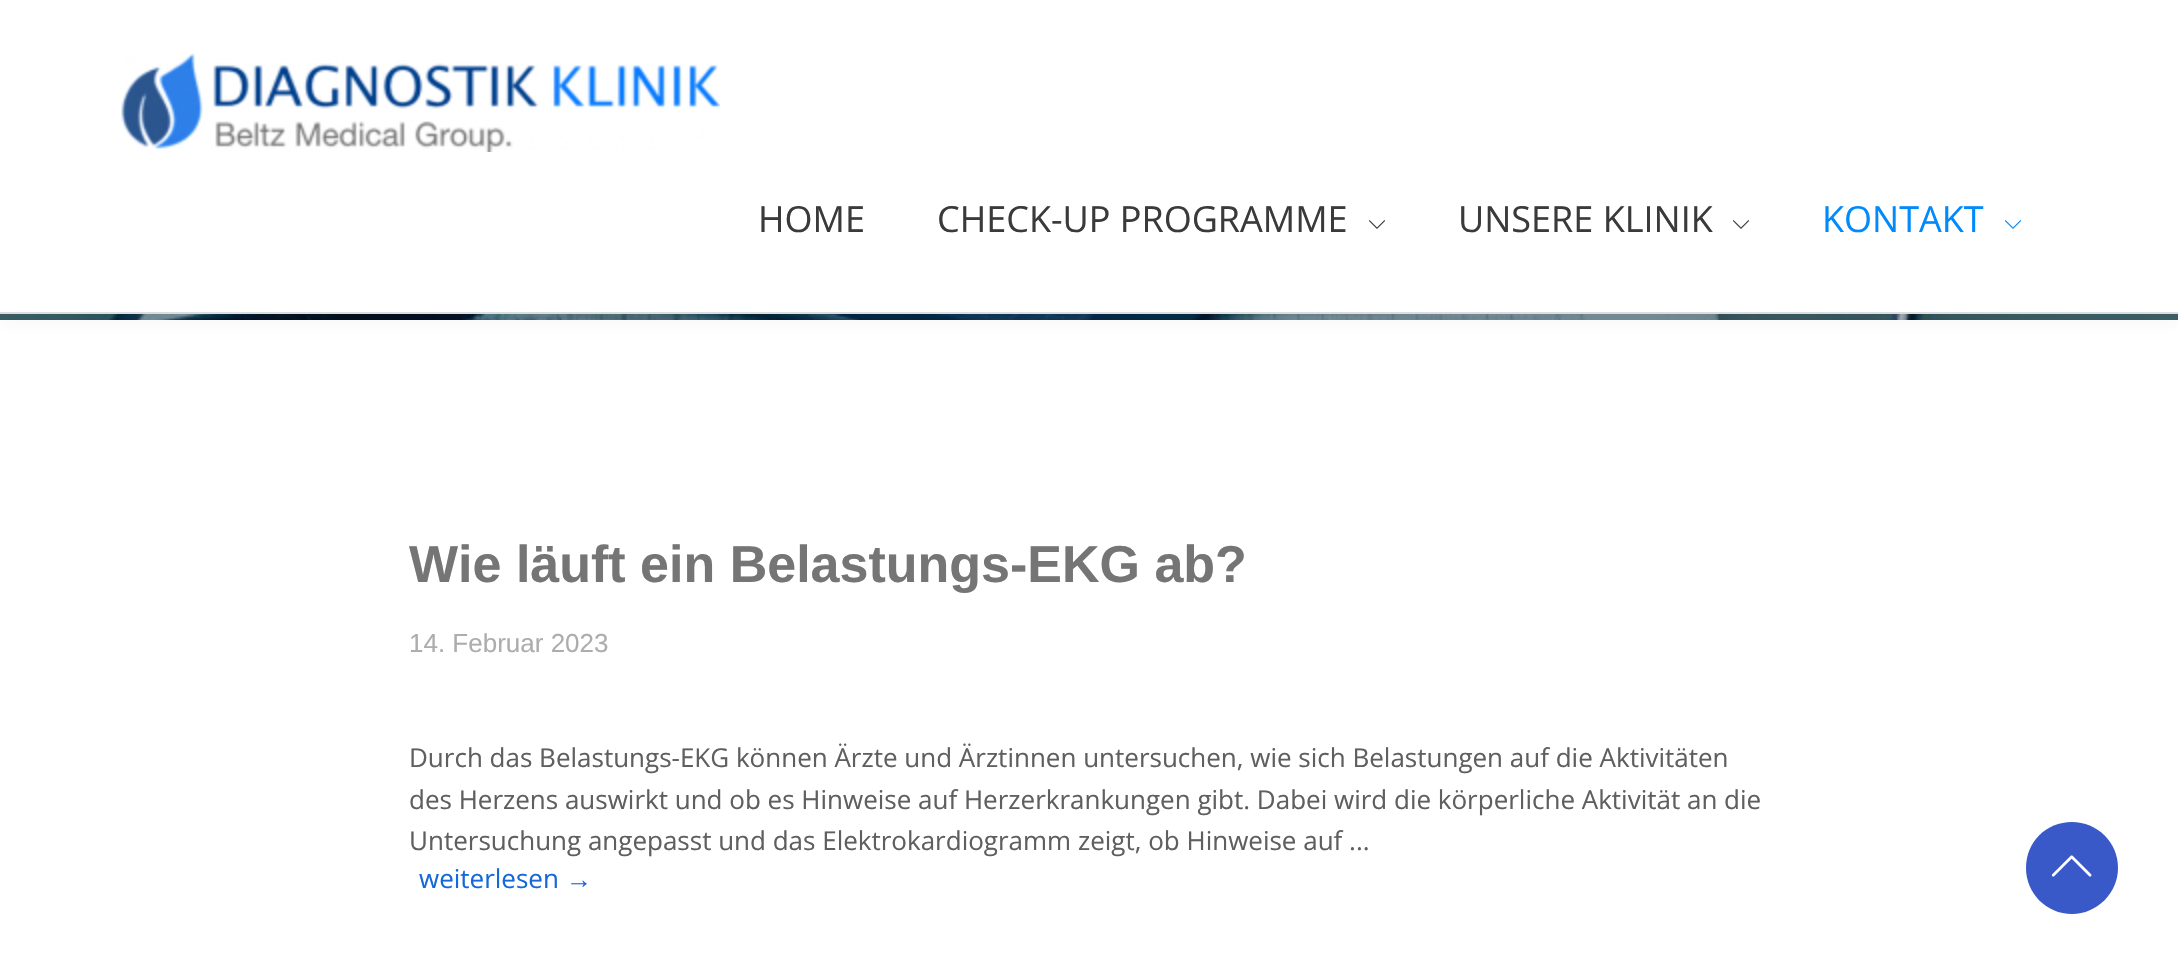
#include "include/core/SkBlurTypes.h"
#include "include/core/SkCanvas.h"
#include "include/core/SkData.h"
#include "include/core/SkFont.h"
#include "include/core/SkFontMgr.h"
#include "include/core/SkImage.h"
#include "include/core/SkMaskFilter.h"
#include "include/core/SkPaint.h"
#include "include/core/SkPathBuilder.h"
#include "include/core/SkTextBlob.h"
#include "include/effects/SkDashPathEffect.h"
#include "include/effects/SkGradientShader.h"
#include "include/utils/SkParsePath.h"

extern sk_sp<SkFontMgr> fontMgr;

void draw(SkCanvas* canvas) {
    SkPaint p;
    p.setAntiAlias(true);
    auto font = [&](const char* family, int weight, float size, bool italic = false) {
        SkFontStyle style(weight, SkFontStyle::kNormal_Width,
            italic ? SkFontStyle::kItalic_Slant : SkFontStyle::kUpright_Slant);
        SkFont result(fontMgr->matchFamilyStyle(family, style), size);
        result.setSubpixel(true);
        return result;
    };
    auto drawPhoto = [&](const char* path, float l, float t, float r, float b) {
        auto image = SkImages::DeferredFromEncodedData(SkData::MakeFromFileName(path));
        canvas->drawImageRect(image, SkRect::MakeLTRB(l, t, r, b), SkSamplingOptions());
    };
    canvas->clear(0xFFFFFFFF);
    drawPhoto("media/4.png", 0, 314, 2178, 320);
    p.setColor(0x12243242);
    p.setMaskFilter(SkMaskFilter::MakeBlur(kNormal_SkBlurStyle, 10));
    canvas->drawRect(SkRect::MakeLTRB(0, 4, 2178, 318), p);
    p.setMaskFilter(nullptr);
    p.setColor(0xFFFFFFFF);
    canvas->drawRect(SkRect::MakeLTRB(0, 0, 2178, 312), p);
    p.setColor(0xFFDDDDDD);
    canvas->drawRect(SkRect::MakeLTRB(0, 312, 2178, 314), p);
    drawPhoto("media/1.png", 121, 53, 720, 152);
    auto font1 = font("Open Sans", 400, 36);
    p.setColor(0xFF3B3A3A);
    canvas->drawString("HOME", 758, 232, font1, p);
    canvas->drawString("CHECK-UP PROGRAMME", 937, 232, font1, p);
    drawPhoto("media/2.png", 1368, 220, 1385, 229);
    canvas->drawString("UNSERE KLINIK", 1458, 232, font1, p);
    drawPhoto("media/2.png", 1732, 220, 1749, 229);
    p.setColor(0xFF008AFC);
    canvas->drawString("KONTAKT", 1822, 232, font1, p);
    drawPhoto("media/3.png", 2004, 220, 2021, 229);
    auto font2 = font("Liberation Sans", 700, 52);
    p.setColor(0xFF757575);
    canvas->drawString("Wie läuft ein Belastungs-EKG ab?", 409, 582, font2, p);
    auto font3 = font("Liberation Sans", 400, 26);
    p.setColor(0xFFADADAD);
    canvas->drawString("14. Februar 2023", 409, 652, font3, p);
    auto font4 = font("Open Sans", 400, 26);
    p.setColor(0xFF5F5F5F);
    {
        const struct { const char* s; float x, y; } items[] = {
            {"Durch das Belastungs-EKG können Ärzte und Ärztinnen untersuchen, wie sich Belastungen auf die Aktivitäten", 409, 767},
            {"des Herzens auswirkt und ob es Hinweise auf Herzerkrankungen gibt. Dabei wird die körperliche Aktivität an die", 409, 809},
            {"Untersuchung angepasst und das Elektrokardiogramm zeigt, ob Hinweise auf ...", 409, 850},
        };
        for (auto [s, x, y] : items) {
            canvas->drawString(s, x, y, font4, p);
        }
    }
    p.setColor(0xFF1468D7);
    canvas->drawString("weiterlesen", 419, 888, font4, p);
    canvas->drawString("→", 566, 888, font3, p);
    p.setColor(0xFF3859C7);
    canvas->drawPath(SkPathBuilder().moveTo(2072, 914).cubicTo(2046, 914, 2026, 893, 2026, 868).cubicTo(2026, 842, 2046, 822, 2072, 822).cubicTo(2097, 822, 2118, 842, 2118, 868).cubicTo(2118, 893, 2097, 914, 2072, 914).close().detach(), p);
    drawPhoto("media/5.png", 2051, 855, 2092, 877);
}
